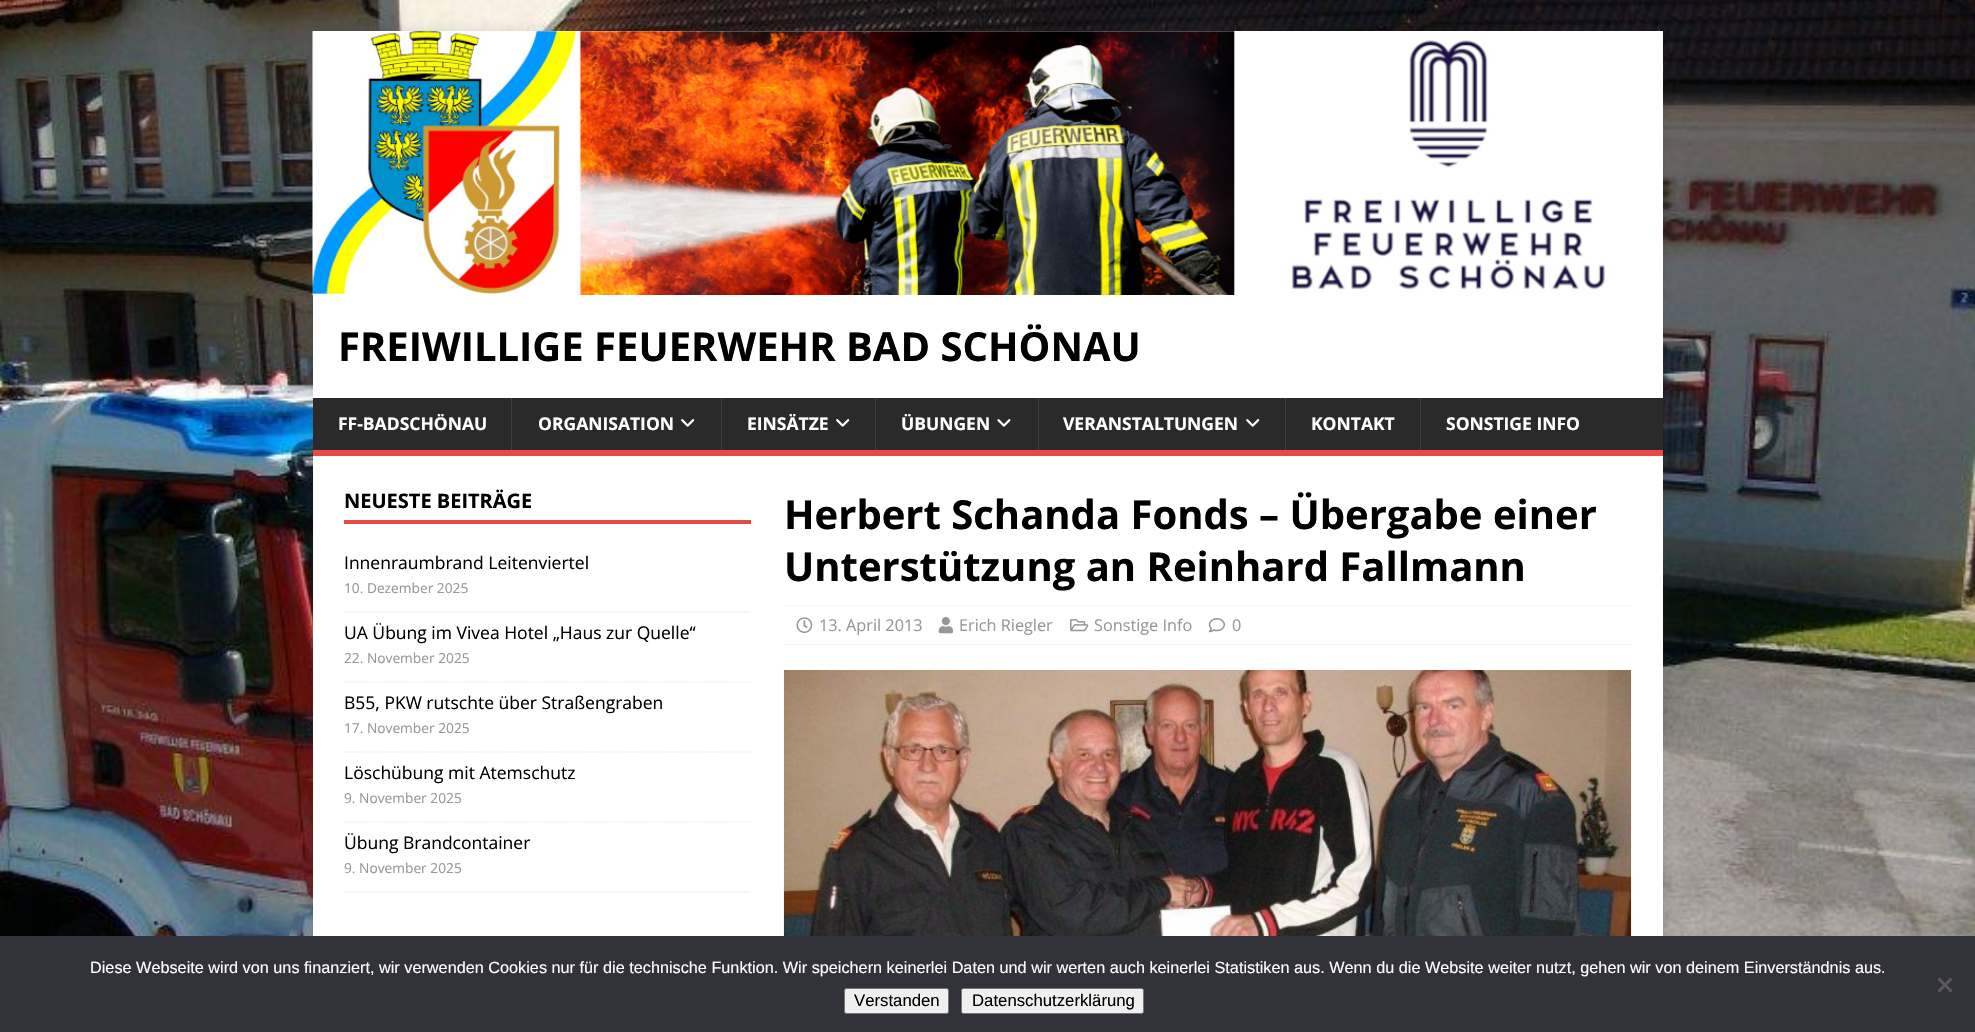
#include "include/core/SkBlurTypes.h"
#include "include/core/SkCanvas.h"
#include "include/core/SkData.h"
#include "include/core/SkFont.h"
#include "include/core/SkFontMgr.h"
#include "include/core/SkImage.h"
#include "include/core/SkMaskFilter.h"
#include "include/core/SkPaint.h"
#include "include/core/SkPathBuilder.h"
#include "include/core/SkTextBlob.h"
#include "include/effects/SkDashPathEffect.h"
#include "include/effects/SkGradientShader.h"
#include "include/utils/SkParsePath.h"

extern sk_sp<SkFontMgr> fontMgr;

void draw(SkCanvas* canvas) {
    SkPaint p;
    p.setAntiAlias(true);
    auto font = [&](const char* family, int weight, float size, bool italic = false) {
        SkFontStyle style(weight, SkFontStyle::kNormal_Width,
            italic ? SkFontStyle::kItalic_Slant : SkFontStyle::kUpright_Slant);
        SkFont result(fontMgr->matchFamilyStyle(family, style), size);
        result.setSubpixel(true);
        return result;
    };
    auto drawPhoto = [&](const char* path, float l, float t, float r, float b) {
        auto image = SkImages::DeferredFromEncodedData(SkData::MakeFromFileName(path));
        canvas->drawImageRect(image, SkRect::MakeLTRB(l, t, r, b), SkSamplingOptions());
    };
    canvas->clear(0xFFFFFFFF);
    drawPhoto("media/1.png", 0, 0, 1975, 936);
    p.setColor(0x2B323232);
    p.setMaskFilter(SkMaskFilter::MakeBlur(kNormal_SkBlurStyle, 6));
    canvas->drawRect(SkRect::MakeLTRB(313, 31, 1663, 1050), p);
    p.setMaskFilter(nullptr);
    p.setColor(0xFFFFFFFF);
    canvas->drawRect(SkRect::MakeLTRB(313, 31, 1663, 398), p);
    drawPhoto("media/2.png", 312, 31, 1606, 295);
    auto font1 = font("Open Sans", 700, 40);
    p.setColor(0xFF000000);
    canvas->drawString("FREIWILLIGE FEUERWEHR BAD SCHÖNAU", 338, 361, font1, p);
    p.setColor(0xFF2A2A2A);
    canvas->drawRect(SkRect::MakeLTRB(313, 398, 1663, 450), p);
    p.setColor(0xFFE64946);
    canvas->drawRect(SkRect::MakeLTRB(313, 450, 1663, 456), p);
    auto font2 = font("Open Sans", 700, 17.5f);
    p.setColor(0xFFFFFFFF);
    canvas->drawString("FF-BADSCHÖNAU", 338, 430, font2, p);
    p.setColor(0xFF3F3F3F);
    canvas->drawRect(SkRect::MakeLTRB(511, 398, 512, 450), p);
    p.setColor(0xFFFFFFFF);
    canvas->drawString("ORGANISATION", 538, 430, font2, p);
    drawPhoto("media/3.png", 681, 419, 695, 427);
    p.setColor(0xFF3F3F3F);
    canvas->drawRect(SkRect::MakeLTRB(721, 398, 722, 450), p);
    p.setColor(0xFFFFFFFF);
    canvas->drawString("EINSÄTZE", 747, 430, font2, p);
    drawPhoto("media/3.png", 836, 419, 850, 427);
    p.setColor(0xFF3F3F3F);
    canvas->drawRect(SkRect::MakeLTRB(875, 398, 876, 450), p);
    p.setColor(0xFFFFFFFF);
    canvas->drawString("ÜBUNGEN", 901, 430, font2, p);
    drawPhoto("media/4.png", 997, 419, 1011, 427);
    p.setColor(0xFF3F3F3F);
    canvas->drawRect(SkRect::MakeLTRB(1038, 398, 1039, 450), p);
    p.setColor(0xFFFFFFFF);
    canvas->drawString("VERANSTALTUNGEN", 1063, 430, font2, p);
    drawPhoto("media/3.png", 1246, 419, 1260, 427);
    p.setColor(0xFF3F3F3F);
    canvas->drawRect(SkRect::MakeLTRB(1285, 398, 1286, 450), p);
    p.setColor(0xFFFFFFFF);
    canvas->drawString("KONTAKT", 1311, 430, font2, p);
    p.setColor(0xFF3F3F3F);
    canvas->drawRect(SkRect::MakeLTRB(1420, 398, 1421, 450), p);
    p.setColor(0xFFFFFFFF);
    canvas->drawString("SONSTIGE INFO", 1446, 430, font2, p);
    canvas->drawRect(SkRect::MakeLTRB(313, 456, 1663, 936), p);
    p.setColor(0xFFE64946);
    canvas->drawRect(SkRect::MakeLTRB(344, 520, 751, 524), p);
    auto font3 = font("Open Sans", 700, 20);
    p.setColor(0xFF000000);
    canvas->drawString("NEUESTE BEITRÄGE", 344, 508, font3, p);
    p.setStyle(SkPaint::kStroke_Style);
    p.setStrokeWidth(1.2f);
    p.setColor(0xFFE5E5E5);
    p.setPathEffect(SkDashPathEffect::Make({{1.25f, 1.25f}}, 0));
    canvas->drawPath(SkPathBuilder().moveTo(344, 612).lineTo(751, 612).detach(), p);
    p.setPathEffect(nullptr);
    auto font4 = font("Open Sans", 400, 17.5f);
    p.setStyle(SkPaint::kFill_Style);
    p.setColor(0xFF000000);
    canvas->drawString("Innenraumbrand Leitenviertel", 344, 569, font4, p);
    auto font5 = font("Open Sans", 400, 13.75f);
    p.setColor(0xFF979797);
    canvas->drawString("10. Dezember 2025", 344, 593, font5, p);
    p.setStyle(SkPaint::kStroke_Style);
    p.setColor(0xFFE5E5E5);
    p.setPathEffect(SkDashPathEffect::Make({{1.25f, 1.25f}}, 0));
    canvas->drawPath(SkPathBuilder().moveTo(344, 682).lineTo(751, 682).detach(), p);
    p.setPathEffect(nullptr);
    p.setStyle(SkPaint::kFill_Style);
    p.setColor(0xFF000000);
    canvas->drawString("UA Übung im Vivea Hotel „Haus zur Quelle“", 344, 639, font4, p);
    p.setColor(0xFF979797);
    canvas->drawString("22. November 2025", 344, 663, font5, p);
    p.setStyle(SkPaint::kStroke_Style);
    p.setColor(0xFFE5E5E5);
    p.setPathEffect(SkDashPathEffect::Make({{1.25f, 1.25f}}, 0));
    canvas->drawPath(SkPathBuilder().moveTo(344, 752).lineTo(751, 752).detach(), p);
    p.setPathEffect(nullptr);
    p.setStyle(SkPaint::kFill_Style);
    p.setColor(0xFF000000);
    canvas->drawString("B55, PKW rutschte über Straßengraben", 344, 709, font4, p);
    p.setColor(0xFF979797);
    canvas->drawString("17. November 2025", 344, 733, font5, p);
    p.setStyle(SkPaint::kStroke_Style);
    p.setColor(0xFFE5E5E5);
    p.setPathEffect(SkDashPathEffect::Make({{1.25f, 1.25f}}, 0));
    canvas->drawPath(SkPathBuilder().moveTo(344, 822).lineTo(751, 822).detach(), p);
    p.setPathEffect(nullptr);
    p.setStyle(SkPaint::kFill_Style);
    p.setColor(0xFF000000);
    canvas->drawString("Löschübung mit Atemschutz", 344, 779, font4, p);
    p.setColor(0xFF979797);
    canvas->drawString("9. November 2025", 344, 803, font5, p);
    p.setStyle(SkPaint::kStroke_Style);
    p.setColor(0xFFE5E5E5);
    p.setPathEffect(SkDashPathEffect::Make({{1.25f, 1.25f}}, 0));
    canvas->drawPath(SkPathBuilder().moveTo(344, 892).lineTo(751, 892).detach(), p);
    p.setPathEffect(nullptr);
    p.setStyle(SkPaint::kFill_Style);
    p.setColor(0xFF000000);
    canvas->drawString("Übung Brandcontainer", 344, 849, font4, p);
    p.setColor(0xFF979797);
    canvas->drawString("9. November 2025", 344, 873, font5, p);
    p.setColor(0xFF000000);
    canvas->drawString("Herbert Schanda Fonds – Übergabe einer", 784, 529, font1, p);
    canvas->drawString("Unterstützung an Reinhard Fallmann", 784, 581, font1, p);
    p.setStyle(SkPaint::kStroke_Style);
    p.setColor(0xFFEBEBEB);
    p.setPathEffect(SkDashPathEffect::Make({{1.25f, 1.25f}}, 0));
    canvas->drawPath(SkPathBuilder().moveTo(784, 605.5f).lineTo(1631, 605.5f).detach(), p);
    p.setPathEffect(nullptr);
    p.setPathEffect(SkDashPathEffect::Make({{1.25f, 1.25f}}, 0));
    canvas->drawPath(SkPathBuilder().moveTo(784, 644.5f).lineTo(1631, 644.5f).detach(), p);
    p.setPathEffect(nullptr);
    drawPhoto("media/5.png", 796, 617, 813, 633);
    auto font6 = font("Open Sans", 400, 16.25f);
    p.setStyle(SkPaint::kFill_Style);
    p.setColor(0xFF979797);
    canvas->drawString("13. April 2013", 819, 631, font6, p);
    drawPhoto("media/6.png", 938, 617, 953, 634);
    canvas->drawString("Erich Riegler", 959, 631, font6, p);
    drawPhoto("media/7.png", 1070, 619, 1089, 632);
    canvas->drawString("Sonstige Info", 1094, 631, font6, p);
    drawPhoto("media/8.png", 1208, 618, 1225, 633);
    canvas->drawString("0", 1232, 631, font6, p);
    drawPhoto("media/9.png", 783, 670, 1632, 936);
    p.setColor(0xFF32323A);
    canvas->drawRect(SkRect::MakeLTRB(0, 936, 1975, 1032), p);
    auto font7 = font("Liberation Sans", 400, 16.25f);
    p.setColor(0xFFFFFFFF);
    canvas->drawString("Diese Webseite wird von uns finanziert, wir verwenden Cookies nur für die technische Funktion. Wir speichern keinerlei Daten und wir werten auch keinerlei Statistiken aus. Wenn du die Website weiter nutzt, gehen wir von deinem Einverständnis aus.", 90, 973, font7, p);
    p.setColor(0xFF59595D);
    canvas->drawPath(SkPathBuilder().moveTo(1950.5f, 977.5f).lineTo(1952.5f, 979.5f).lineTo(1939.5f, 992.5f).lineTo(1937.5f, 990.5f).close().detach(), p);
    canvas->drawPath(SkPathBuilder().moveTo(1937.5f, 979.5f).lineTo(1939.5f, 977.5f).lineTo(1952.5f, 990.5f).lineTo(1950.5f, 992.5f).close().detach(), p);
    p.setColor(0xFFEFEFEF);
    canvas->drawRoundRect(SkRect::MakeLTRB(844.5f, 988.5f, 948.5f, 1013.5f), 2, 2, p);
    p.setStyle(SkPaint::kStroke_Style);
    p.setStrokeWidth(1);
    p.setColor(0xFF767676);
    canvas->drawRoundRect(SkRect::MakeLTRB(844.5f, 988.5f, 948.5f, 1013.5f), 2, 2, p);
    auto font8 = font("Liberation Sans", 400, 16.75f);
    p.setStyle(SkPaint::kFill_Style);
    p.setColor(0xFF000000);
    canvas->drawString("Verstanden", 854, 1006, font8, p);
    p.setColor(0xFFEFEFEF);
    canvas->drawRoundRect(SkRect::MakeLTRB(961.5f, 988.5f, 1143.5f, 1013.5f), 2, 2, p);
    p.setStyle(SkPaint::kStroke_Style);
    p.setColor(0xFF767676);
    canvas->drawRoundRect(SkRect::MakeLTRB(961.5f, 988.5f, 1143.5f, 1013.5f), 2, 2, p);
    p.setStyle(SkPaint::kFill_Style);
    p.setColor(0xFF000000);
    canvas->drawString("Datenschutzerklärung", 972, 1006, font8, p);
}
